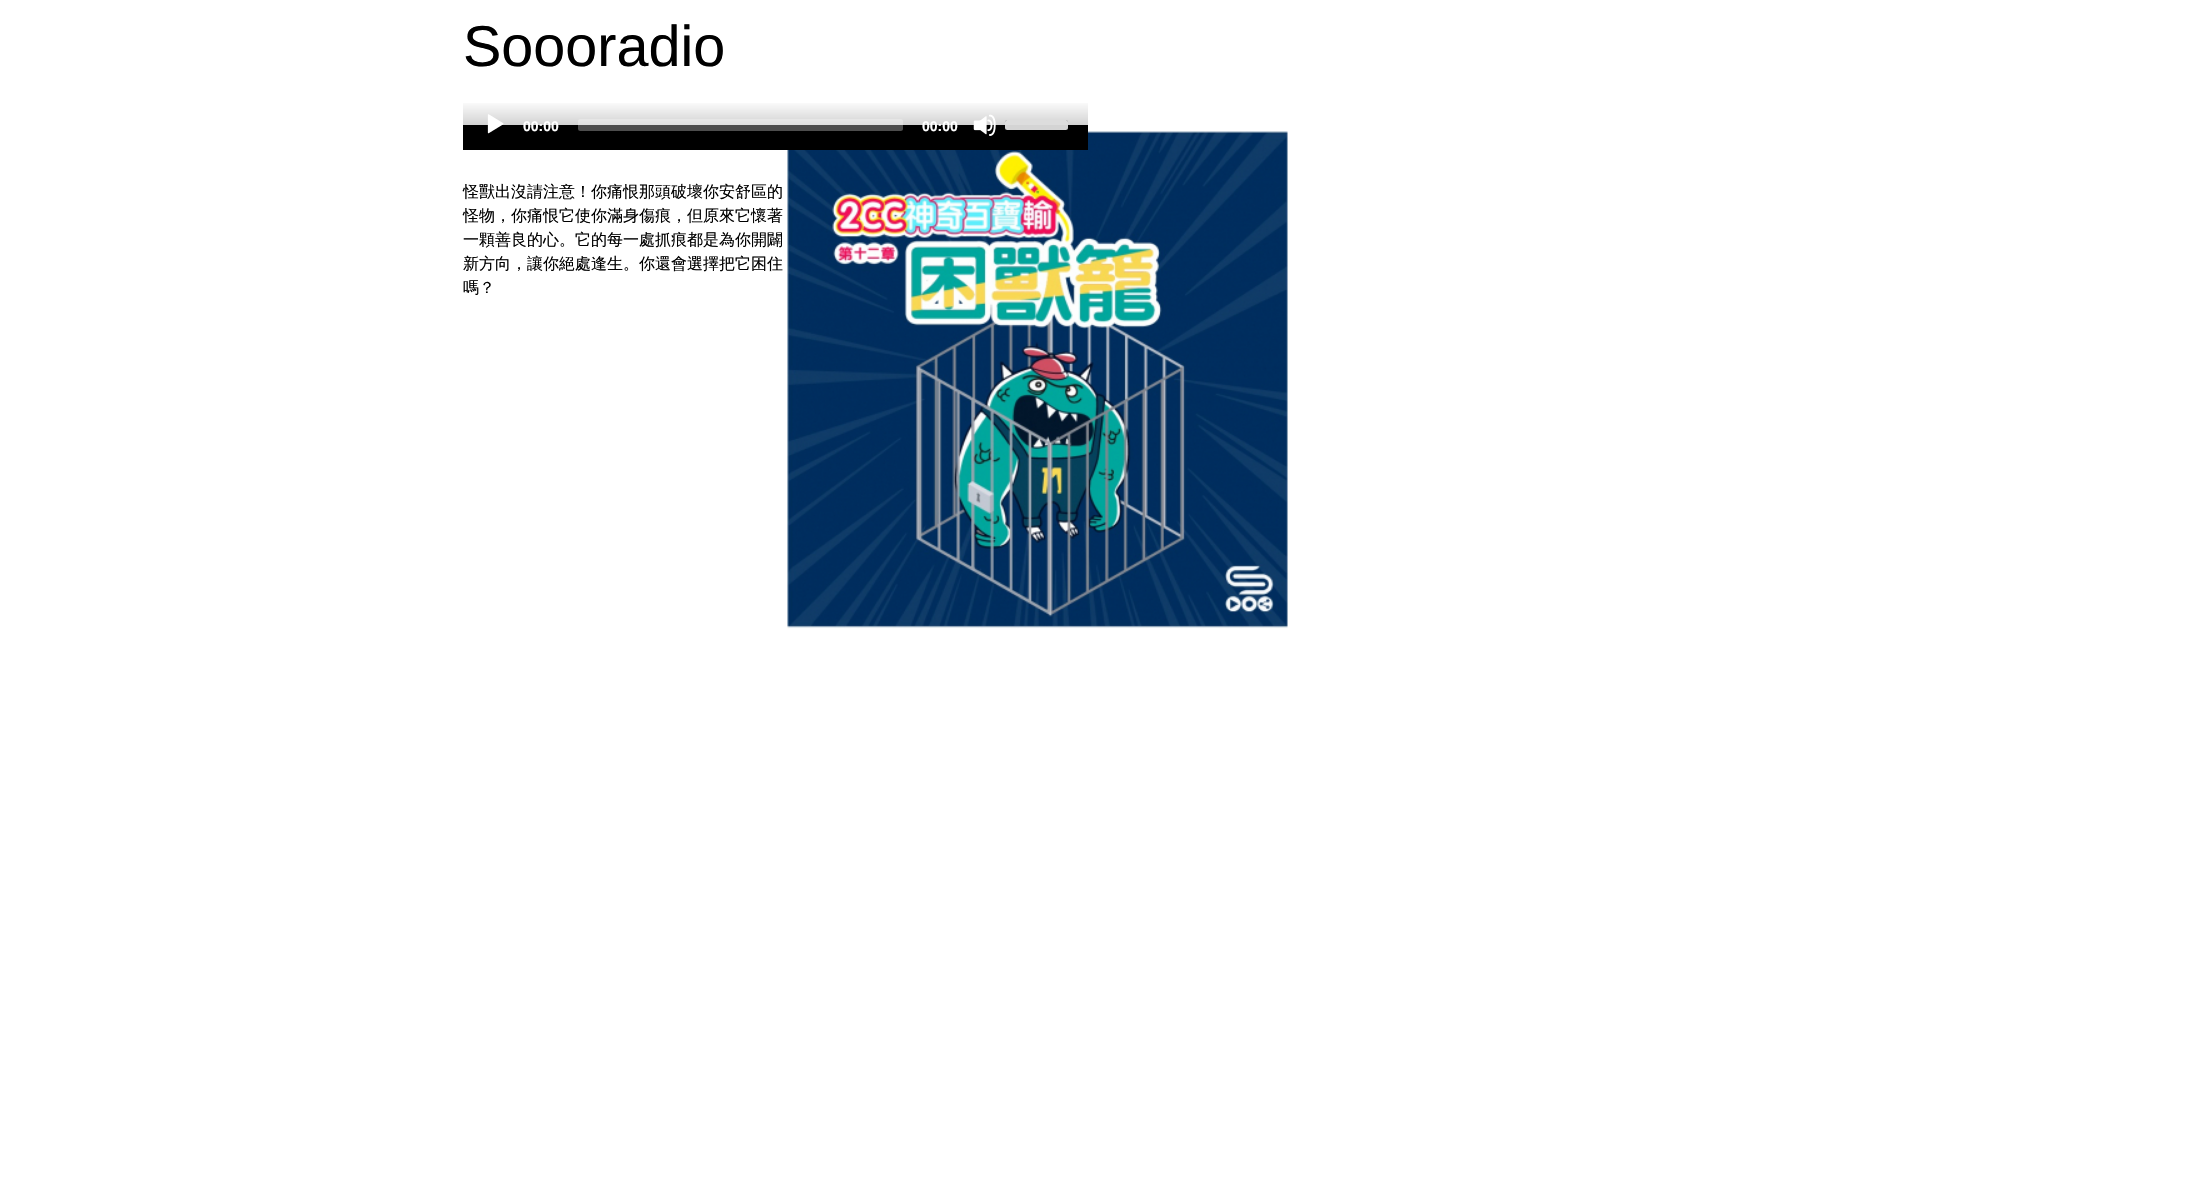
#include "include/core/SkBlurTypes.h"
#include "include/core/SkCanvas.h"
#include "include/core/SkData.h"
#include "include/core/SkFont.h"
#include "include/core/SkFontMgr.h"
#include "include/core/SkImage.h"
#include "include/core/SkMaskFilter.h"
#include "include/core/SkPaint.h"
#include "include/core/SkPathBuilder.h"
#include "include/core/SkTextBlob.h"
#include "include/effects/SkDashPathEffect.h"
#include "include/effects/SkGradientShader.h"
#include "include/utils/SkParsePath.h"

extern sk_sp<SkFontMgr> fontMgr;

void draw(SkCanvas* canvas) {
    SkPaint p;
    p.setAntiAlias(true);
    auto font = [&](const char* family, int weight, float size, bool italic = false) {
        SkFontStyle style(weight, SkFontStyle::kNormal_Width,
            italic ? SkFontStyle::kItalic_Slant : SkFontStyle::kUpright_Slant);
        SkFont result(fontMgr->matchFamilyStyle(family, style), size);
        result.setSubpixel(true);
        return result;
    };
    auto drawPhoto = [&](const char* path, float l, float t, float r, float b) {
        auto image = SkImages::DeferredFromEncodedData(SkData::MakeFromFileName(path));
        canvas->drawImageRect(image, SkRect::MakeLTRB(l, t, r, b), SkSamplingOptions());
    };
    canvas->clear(0xFFFFFFFF);
    auto font1 = font("Liberation Sans", 400, 57.5f);
    p.setColor(0xFF000000);
    canvas->drawString("Soooradio", 463, 66, font1, p);
    drawPhoto("media/3.png", 787, 131, 1288, 629);
    canvas->drawRect(SkRect::MakeLTRB(463, 125, 1088, 150), p);
    {
        const SkColor colors[] = {0x00000000, 0x59000000};
        const float stops[] = {0, 1};
        const SkPoint ends[] = {{775, 100}, {775, 150}};
        p.setShader(SkGradientShader::MakeLinear(ends, colors, stops, 2, SkTileMode::kClamp));
        p.setAlpha(255);
    }
    canvas->drawRect(SkRect::MakeLTRB(463, 103, 1088, 125), p);
    drawPhoto("media/1.png", 487, 114, 504, 134);
    auto font2 = font("Liberation Sans", 700, 14);
    p.setShader(nullptr);
    p.setColor(0xFFFFFFFF);
    canvas->drawString("00:00", 523, 131, font2, p);
    p.setColor(0x4DFFFFFF);
    canvas->drawRoundRect(SkRect::MakeLTRB(578, 119, 903, 131), 2.5f, 2.5f, p);
    p.setColor(0xFFFFFFFF);
    canvas->drawString("00:00", 922, 131, font2, p);
    drawPhoto("media/2.png", 973, 114, 996, 136);
    p.setColor(0xCC323232);
    canvas->drawRoundRect(SkRect::MakeLTRB(1005, 120, 1068, 130), 2.5f, 2.5f, p);
    p.setColor(0xCCFFFFFF);
    canvas->drawRoundRect(SkRect::MakeLTRB(1005, 120, 1068, 130), 2.5f, 2.5f, p);
    auto font3 = font("WenQuanYi Zen Hei", 500, 16);
    p.setColor(0xFF000000);
    {
        const struct { const char* s; float x, y; } items[] = {
            {"怪獸出沒請注意！你痛恨那頭破壞你安舒區的", 463, 197},
            {"怪物，你痛恨它使你滿身傷痕，但原來它懷著", 463, 221},
            {"一顆善良的心。它的每一處抓痕都是為你開闢", 463, 245},
            {"新方向，讓你絕處逢生。你還會選擇把它困住", 463, 269},
            {"嗎？", 463, 293},
        };
        for (auto [s, x, y] : items) {
            canvas->drawString(s, x, y, font3, p);
        }
    }
}
